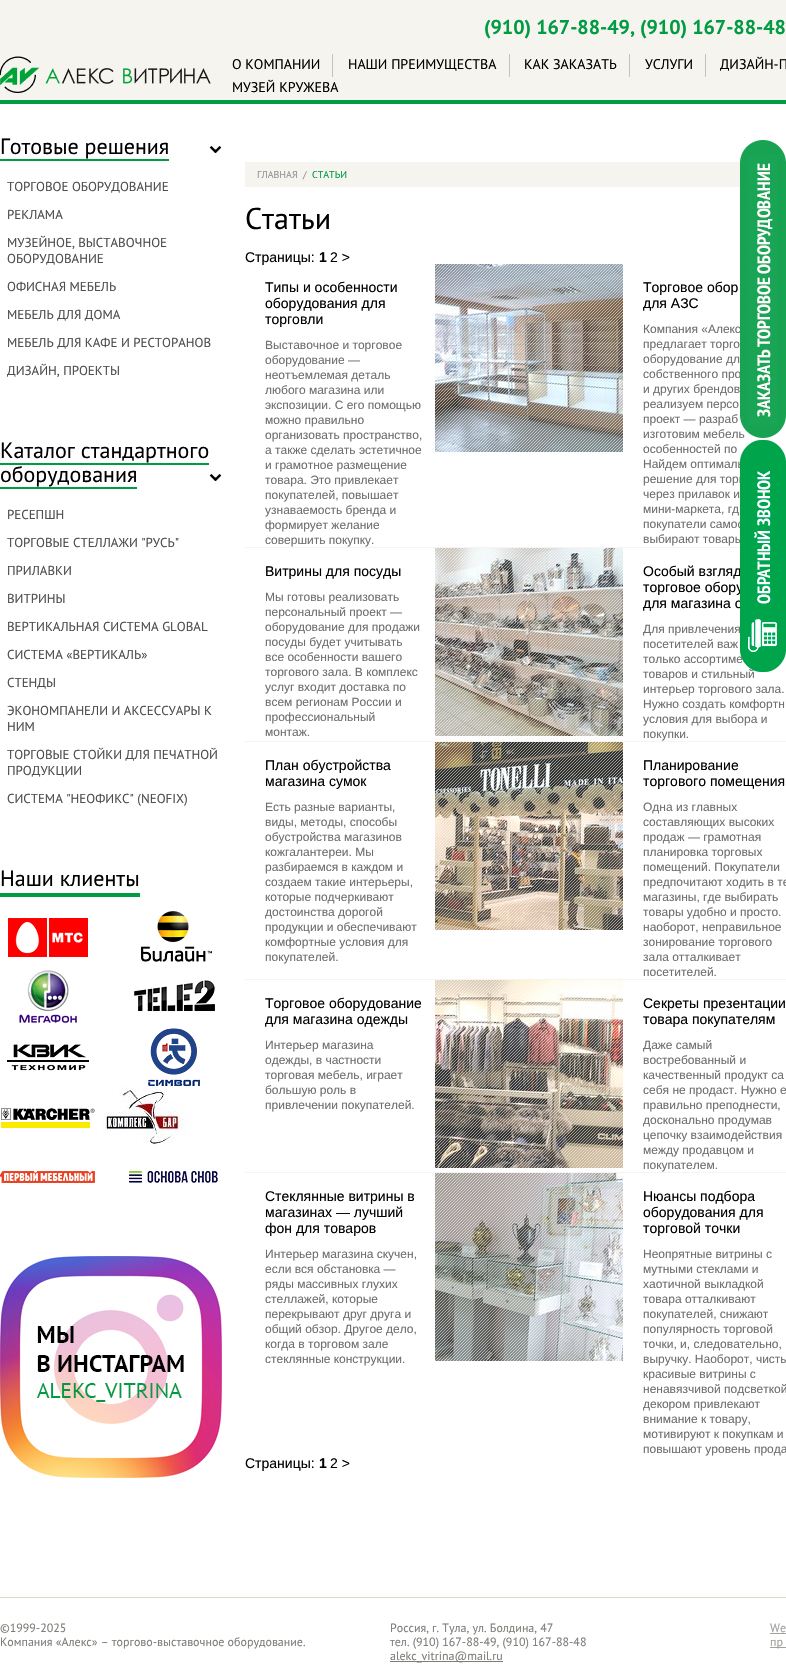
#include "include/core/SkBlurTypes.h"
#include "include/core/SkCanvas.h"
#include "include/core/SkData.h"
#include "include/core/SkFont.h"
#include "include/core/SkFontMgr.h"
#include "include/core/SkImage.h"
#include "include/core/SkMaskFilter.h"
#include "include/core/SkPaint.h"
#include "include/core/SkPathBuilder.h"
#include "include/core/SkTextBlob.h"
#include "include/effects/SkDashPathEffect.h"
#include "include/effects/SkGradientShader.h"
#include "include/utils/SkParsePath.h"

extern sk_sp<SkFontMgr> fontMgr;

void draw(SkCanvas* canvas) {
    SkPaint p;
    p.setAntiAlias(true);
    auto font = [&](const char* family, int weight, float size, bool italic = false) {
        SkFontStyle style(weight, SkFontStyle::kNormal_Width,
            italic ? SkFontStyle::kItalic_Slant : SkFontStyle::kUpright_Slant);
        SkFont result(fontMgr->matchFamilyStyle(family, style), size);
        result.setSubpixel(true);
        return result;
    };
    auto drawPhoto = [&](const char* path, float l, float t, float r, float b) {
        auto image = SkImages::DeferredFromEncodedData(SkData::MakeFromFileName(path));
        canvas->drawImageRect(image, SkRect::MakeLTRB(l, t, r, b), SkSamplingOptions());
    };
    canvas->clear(0xFFFFFFFF);
    p.setColor(0xFFF5F4EF);
    canvas->drawRect(SkRect::MakeLTRB(0, 0, 786, 100), p);
    auto font1 = font("PT Sans", 700, 20);
    p.setColor(0xFF009B43);
    canvas->drawString("(910) 167-88-49, (910) 167-88-48", 484, 34, font1, p);
    canvas->drawRect(SkRect::MakeLTRB(0, 100, 786, 104), p);
    drawPhoto("media/1.png", 0, 56, 211, 93);
    p.setColor(0xFFC3C1C2);
    canvas->drawRect(SkRect::MakeLTRB(332, 54, 333, 77), p);
    auto font2 = font("PT Sans", 400, 14);
    p.setColor(0xFF000000);
    canvas->drawString("О КОМПАНИИ", 232, 69, font2, p);
    p.setColor(0xFFC3C1C2);
    canvas->drawRect(SkRect::MakeLTRB(509, 54, 510, 77), p);
    p.setColor(0xFF000000);
    canvas->drawString("НАШИ ПРЕИМУЩЕСТВА", 348, 69, font2, p);
    p.setColor(0xFFC3C1C2);
    canvas->drawRect(SkRect::MakeLTRB(629, 54, 630, 77), p);
    p.setColor(0xFF000000);
    canvas->drawString("КАК ЗАКАЗАТЬ", 524, 69, font2, p);
    p.setColor(0xFFC3C1C2);
    canvas->drawRect(SkRect::MakeLTRB(705, 54, 706, 77), p);
    p.setColor(0xFF000000);
    {
        const struct { const char* s; float x, y; } items[] = {
            {"УСЛУГИ", 645, 69},
            {"ДИЗАЙН-П", 720, 69},
            {"МУЗЕЙ КРУЖЕВА", 232, 92},
        };
        for (auto [s, x, y] : items) {
            canvas->drawString(s, x, y, font2, p);
        }
    }
    auto font3 = font("PT Sans", 400, 22);
    canvas->drawString("Готовые решения", 0, 154, font3, p);
    p.setColor(0xFF009B43);
    canvas->drawRect(SkRect::MakeLTRB(0, 159, 169, 161), p);
    drawPhoto("media/2.png", 209, 145, 222, 153);
    auto font4 = font("PT Sans", 400, 13);
    p.setColor(0xFF4E4E4E);
    {
        const struct { const char* s; float x, y; } items[] = {
            {"ТОРГОВОЕ ОБОРУДОВАНИЕ", 7, 191},
            {"РЕКЛАМА", 7, 219},
            {"МУЗЕЙНОЕ, ВЫСТАВОЧНОЕ", 7, 247},
            {"ОБОРУДОВАНИЕ", 7, 263},
            {"ОФИСНАЯ МЕБЕЛЬ", 7, 291},
            {"МЕБЕЛЬ ДЛЯ ДОМА", 7, 319},
            {"МЕБЕЛЬ ДЛЯ КАФЕ И РЕСТОРАНОВ", 7, 347},
            {"ДИЗАЙН, ПРОЕКТЫ", 7, 375},
        };
        for (auto [s, x, y] : items) {
            canvas->drawString(s, x, y, font4, p);
        }
    }
    p.setColor(0xFF000000);
    canvas->drawString("Каталог стандартного", 0, 458, font3, p);
    p.setColor(0xFF009B43);
    canvas->drawRect(SkRect::MakeLTRB(0, 463, 209, 465), p);
    p.setColor(0xFF000000);
    canvas->drawString("оборудования", 0, 482, font3, p);
    p.setColor(0xFF009B43);
    canvas->drawRect(SkRect::MakeLTRB(0, 487, 137, 489), p);
    drawPhoto("media/2.png", 209, 473, 222, 481);
    p.setColor(0xFF4E4E4E);
    {
        const struct { const char* s; float x, y; } items[] = {
            {"РЕСЕПШН", 7, 519},
            {"ТОРГОВЫЕ СТЕЛЛАЖИ \"РУСЬ\"", 7, 547},
            {"ПРИЛАВКИ", 7, 575},
            {"ВИТРИНЫ", 7, 603},
            {"ВЕРТИКАЛЬНАЯ СИСТЕМА GLOBAL", 7, 631},
            {"СИСТЕМА «ВЕРТИКАЛЬ»", 7, 659},
            {"СТЕНДЫ", 7, 687},
            {"ЭКОНОМПАНЕЛИ И АКСЕССУАРЫ К", 7, 715},
            {"НИМ", 7, 731},
            {"ТОРГОВЫЕ СТОЙКИ ДЛЯ ПЕЧАТНОЙ", 7, 759},
            {"ПРОДУКЦИИ", 7, 775},
            {"СИСТЕМА \"НЕОФИКС\" (NEOFIX)", 7, 803},
        };
        for (auto [s, x, y] : items) {
            canvas->drawString(s, x, y, font4, p);
        }
    }
    p.setColor(0xFF009B43);
    canvas->drawRect(SkRect::MakeLTRB(0, 893, 140, 897), p);
    p.setColor(0xFF000000);
    canvas->drawString("Наши клиенты", 0, 886, font3, p);
    drawPhoto("media/3.png", 8, 918, 88, 957);
    drawPhoto("media/4.png", 141, 911, 212, 962);
    drawPhoto("media/5.png", 19, 970, 77, 1023);
    drawPhoto("media/6.png", 134, 980, 215, 1012);
    drawPhoto("media/7.png", 7, 1044, 89, 1071);
    drawPhoto("media/8.png", 148, 1028, 200, 1086);
    drawPhoto("media/9.png", 1, 1108, 95, 1128);
    drawPhoto("media/10.png", 103, 1087, 190, 1146);
    drawPhoto("media/11.png", 0, 1171, 95, 1183);
    drawPhoto("media/12.png", 129, 1171, 218, 1183);
    drawPhoto("media/13.png", 0, 1256, 222, 1478);
    p.setColor(0xFFF5F4EF);
    canvas->drawRect(SkRect::MakeLTRB(245, 162, 786, 187), p);
    auto font5 = font("PT Sans", 400, 10);
    p.setColor(0xFF939393);
    canvas->drawString("ГЛАВНАЯ", 257, 178, font5, p);
    canvas->drawString("/", 303, 178, font5, p);
    p.setColor(0xFF009B43);
    canvas->drawString("СТАТЬИ", 312, 178, font5, p);
    auto font6 = font("PT Sans", 400, 30);
    p.setColor(0xFF000000);
    canvas->drawString("Статьи", 245, 229, font6, p);
    auto font7 = font("Liberation Sans", 400, 14);
    canvas->drawString("Страницы:", 245, 262, font7, p);
    auto font8 = font("Liberation Sans", 700, 14);
    canvas->drawString("1", 319, 262, font8, p);
    {
        const struct { const char* s; float x, y; } items[] = {
            {"2 >", 330, 262},
            {"Типы и особенности", 265, 292},
            {"оборудования для", 265, 308},
            {"торговли", 265, 324},
        };
        for (auto [s, x, y] : items) {
            canvas->drawString(s, x, y, font7, p);
        }
    }
    auto font9 = font("Liberation Sans", 400, 12);
    p.setColor(0xFF6E6E6E);
    {
        const struct { const char* s; float x, y; } items[] = {
            {"Выставочное и торговое", 265, 349},
            {"оборудование —", 265, 364},
            {"неотъемлемая деталь", 265, 379},
            {"любого магазина или", 265, 394},
            {"экспозиции. С его помощью", 265, 409},
            {"можно правильно", 265, 424},
            {"организовать пространство,", 265, 439},
            {"а также сделать эстетичное", 265, 454},
            {"и грамотное размещение", 265, 469},
            {"товара. Это привлекает", 265, 484},
            {"покупателей, повышает", 265, 499},
            {"узнаваемость бренда и", 265, 514},
            {"формирует желание", 265, 529},
            {"совершить покупку.", 265, 544},
        };
        for (auto [s, x, y] : items) {
            canvas->drawString(s, x, y, font9, p);
        }
    }
    drawPhoto("media/14.png", 435, 264, 623, 452);
    drawPhoto("media/15.png", 435, 264, 623, 452);
    p.setColor(0xFF000000);
    canvas->drawString("Торговое обор", 643, 292, font7, p);
    canvas->drawString("для АЗС", 643, 308, font7, p);
    p.setColor(0xFF6E6E6E);
    {
        const struct { const char* s; float x, y; } items[] = {
            {"Компания «Алекс", 643, 333},
            {"предлагает торго", 643, 348},
            {"оборудование дл", 643, 363},
            {"собственного про", 643, 378},
            {"и других брендов", 643, 393},
            {"реализуем персо", 643, 408},
            {"проект — разраб", 643, 423},
            {"изготовим мебель", 643, 438},
            {"особенностей по", 643, 453},
            {"Найдем оптималь", 643, 468},
            {"решение для торг", 643, 483},
            {"через прилавок и", 643, 498},
            {"мини-маркета, гд", 643, 513},
            {"покупатели самос", 643, 528},
            {"выбирают товары", 643, 543},
        };
        for (auto [s, x, y] : items) {
            canvas->drawString(s, x, y, font9, p);
        }
    }
    p.setColor(0xFFF7F4EF);
    canvas->drawRect(SkRect::MakeLTRB(245, 547, 740, 548), p);
    p.setColor(0xFF000000);
    canvas->drawString("Витрины для посуды", 265, 576, font7, p);
    p.setColor(0xFF6E6E6E);
    {
        const struct { const char* s; float x, y; } items[] = {
            {"Мы готовы реализовать", 265, 601},
            {"персональный проект —", 265, 616},
            {"оборудование для продажи", 265, 631},
            {"посуды будет учитывать", 265, 646},
            {"все особенности вашего", 265, 661},
            {"торгового зала. В комплекс", 265, 676},
            {"услуг входит доставка по", 265, 691},
            {"всем регионам России и", 265, 706},
            {"профессиональный", 265, 721},
            {"монтаж.", 265, 736},
        };
        for (auto [s, x, y] : items) {
            canvas->drawString(s, x, y, font9, p);
        }
    }
    drawPhoto("media/16.png", 435, 548, 623, 736);
    drawPhoto("media/17.png", 435, 548, 623, 736);
    p.setColor(0xFF000000);
    {
        const struct { const char* s; float x, y; } items[] = {
            {"Особый взгляд", 643, 576},
            {"торговое обору", 643, 592},
            {"для магазина о", 643, 608},
        };
        for (auto [s, x, y] : items) {
            canvas->drawString(s, x, y, font7, p);
        }
    }
    p.setColor(0xFF6E6E6E);
    {
        const struct { const char* s; float x, y; } items[] = {
            {"Для привлечения", 643, 633},
            {"посетителей важ", 643, 648},
            {"только ассортиме", 643, 663},
            {"товаров и стильный", 643, 678},
            {"интерьер торгового зала.", 643, 693},
            {"Нужно создать комфортн", 643, 708},
            {"условия для выбора и", 643, 723},
            {"покупки.", 643, 738},
        };
        for (auto [s, x, y] : items) {
            canvas->drawString(s, x, y, font9, p);
        }
    }
    p.setColor(0xFFF7F4EF);
    canvas->drawRect(SkRect::MakeLTRB(245, 741, 786, 742), p);
    p.setColor(0xFF000000);
    canvas->drawString("План обустройства", 265, 770, font7, p);
    canvas->drawString("магазина сумок", 265, 786, font7, p);
    p.setColor(0xFF6E6E6E);
    {
        const struct { const char* s; float x, y; } items[] = {
            {"Есть разные варианты,", 265, 811},
            {"виды, методы, способы", 265, 826},
            {"обустройства магазинов", 265, 841},
            {"кожгалантереи. Мы", 265, 856},
            {"разбираемся в каждом и", 265, 871},
            {"создаем такие интерьеры,", 265, 886},
            {"которые подчеркивают", 265, 901},
            {"достоинства дорогой", 265, 916},
            {"продукции и обеспечивают", 265, 931},
            {"комфортные условия для", 265, 946},
            {"покупателей.", 265, 961},
        };
        for (auto [s, x, y] : items) {
            canvas->drawString(s, x, y, font9, p);
        }
    }
    drawPhoto("media/18.png", 435, 742, 623, 930);
    drawPhoto("media/19.png", 435, 742, 623, 930);
    p.setColor(0xFF000000);
    canvas->drawString("Планирование", 643, 770, font7, p);
    canvas->drawString("торгового помещения", 643, 786, font7, p);
    p.setColor(0xFF6E6E6E);
    {
        const struct { const char* s; float x, y; } items[] = {
            {"Одна из главных", 643, 811},
            {"составляющих высоких", 643, 826},
            {"продаж — грамотная", 643, 841},
            {"планировка торговых", 643, 856},
            {"помещений. Покупатели", 643, 871},
            {"предпочитают ходить в те", 643, 886},
            {"магазины, где выбирать", 643, 901},
            {"товары удобно и просто.", 643, 916},
            {"наоборот, неправильное", 643, 931},
            {"зонирование торгового", 643, 946},
            {"зала отталкивает", 643, 961},
            {"посетителей.", 643, 976},
        };
        for (auto [s, x, y] : items) {
            canvas->drawString(s, x, y, font9, p);
        }
    }
    p.setColor(0xFFF7F4EF);
    canvas->drawRect(SkRect::MakeLTRB(245, 979, 786, 980), p);
    p.setColor(0xFF000000);
    canvas->drawString("Торговое оборудование", 265, 1008, font7, p);
    canvas->drawString("для магазина одежды", 265, 1024, font7, p);
    p.setColor(0xFF6E6E6E);
    {
        const struct { const char* s; float x, y; } items[] = {
            {"Интерьер магазина", 265, 1049},
            {"одежды, в частности", 265, 1064},
            {"торговая мебель, играет", 265, 1079},
            {"большую роль в", 265, 1094},
            {"привлечении покупателей.", 265, 1109},
        };
        for (auto [s, x, y] : items) {
            canvas->drawString(s, x, y, font9, p);
        }
    }
    drawPhoto("media/20.png", 435, 980, 623, 1168);
    drawPhoto("media/21.png", 435, 980, 623, 1168);
    p.setColor(0xFF000000);
    canvas->drawString("Секреты презентации", 643, 1008, font7, p);
    canvas->drawString("товара покупателям", 643, 1024, font7, p);
    p.setColor(0xFF6E6E6E);
    {
        const struct { const char* s; float x, y; } items[] = {
            {"Даже самый", 643, 1049},
            {"востребованный и", 643, 1064},
            {"качественный продукт са", 643, 1079},
            {"себя не продаст. Нужно е", 643, 1094},
            {"правильно преподнести,", 643, 1109},
            {"досконально продумав", 643, 1124},
            {"цепочку взаимодействия", 643, 1139},
            {"между продавцом и", 643, 1154},
            {"покупателем.", 643, 1169},
        };
        for (auto [s, x, y] : items) {
            canvas->drawString(s, x, y, font9, p);
        }
    }
    p.setColor(0xFFF7F4EF);
    canvas->drawRect(SkRect::MakeLTRB(245, 1172, 786, 1173), p);
    p.setColor(0xFF000000);
    {
        const struct { const char* s; float x, y; } items[] = {
            {"Стеклянные витрины в", 265, 1201},
            {"магазинах — лучший", 265, 1217},
            {"фон для товаров", 265, 1233},
        };
        for (auto [s, x, y] : items) {
            canvas->drawString(s, x, y, font7, p);
        }
    }
    p.setColor(0xFF6E6E6E);
    {
        const struct { const char* s; float x, y; } items[] = {
            {"Интерьер магазина скучен,", 265, 1258},
            {"если вся обстановка —", 265, 1273},
            {"ряды массивных глухих", 265, 1288},
            {"стеллажей, которые", 265, 1303},
            {"перекрывают друг друга и", 265, 1318},
            {"общий обзор. Другое дело,", 265, 1333},
            {"когда в торговом зале", 265, 1348},
            {"стеклянные конструкции.", 265, 1363},
        };
        for (auto [s, x, y] : items) {
            canvas->drawString(s, x, y, font9, p);
        }
    }
    drawPhoto("media/22.png", 435, 1173, 623, 1361);
    drawPhoto("media/23.png", 435, 1173, 623, 1361);
    p.setColor(0xFF000000);
    {
        const struct { const char* s; float x, y; } items[] = {
            {"Нюансы подбора", 643, 1201},
            {"оборудования для", 643, 1217},
            {"торговой точки", 643, 1233},
        };
        for (auto [s, x, y] : items) {
            canvas->drawString(s, x, y, font7, p);
        }
    }
    p.setColor(0xFF6E6E6E);
    {
        const struct { const char* s; float x, y; } items[] = {
            {"Неопрятные витрины с", 643, 1258},
            {"мутными стеклами и", 643, 1273},
            {"хаотичной выкладкой", 643, 1288},
            {"товара отталкивают", 643, 1303},
            {"покупателей, снижают", 643, 1318},
            {"популярность торговой", 643, 1333},
            {"точки, и, следовательно,", 643, 1348},
            {"выручку. Наоборот, чисты", 643, 1363},
            {"красивые витрины с", 643, 1378},
            {"ненавязчивой подсветкой", 643, 1393},
            {"декором привлекают", 643, 1408},
            {"внимание к товару,", 643, 1423},
            {"мотивируют к покупкам и", 643, 1438},
            {"повышают уровень прода", 643, 1453},
        };
        for (auto [s, x, y] : items) {
            canvas->drawString(s, x, y, font9, p);
        }
    }
    p.setColor(0xFF000000);
    canvas->drawString("Страницы:", 245, 1468, font7, p);
    canvas->drawString("1", 319, 1468, font8, p);
    canvas->drawString("2 >", 330, 1468, font7, p);
    drawPhoto("media/24.png", 740, 140, 786, 438);
    drawPhoto("media/25.png", 740, 440, 786, 672);
    p.setColor(0xFFDBD7CB);
    canvas->drawRect(SkRect::MakeLTRB(0, 1597, 786, 1598), p);
    auto font10 = font("PT Sans", 400, 12);
    p.setColor(0xFF807E79);
    {
        const struct { const char* s; float x, y; } items[] = {
            {"©1999-2025", 0, 1632},
            {"Компания «Алекс» – торгово-выставочное оборудование.", 0, 1646},
            {"Россия, г. Тула, ул. Болдина, 47", 390, 1632},
            {"тел. (910) 167-88-49, (910) 167-88-48", 390, 1646},
        };
        for (auto [s, x, y] : items) {
            canvas->drawString(s, x, y, font10, p);
        }
    }
    canvas->drawRect(SkRect::MakeLTRB(390, 1661, 503, 1662), p);
    canvas->drawString("alekc_vitrina@mail.ru", 390, 1660, font10, p);
    p.setColor(0xFFA2A19D);
    canvas->drawString("We", 770, 1632, font10, p);
    canvas->drawRect(SkRect::MakeLTRB(770, 1633, 786, 1634), p);
    canvas->drawRect(SkRect::MakeLTRB(770, 1647, 786, 1648), p);
    canvas->drawString("пр", 770, 1646, font10, p);
}
